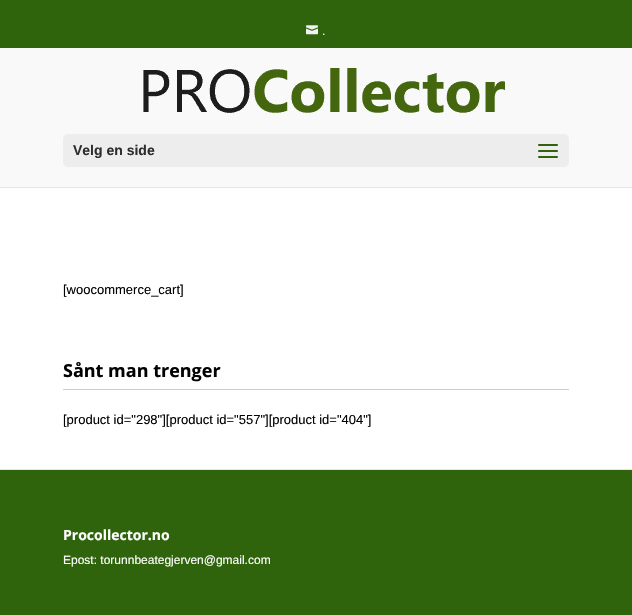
#include "include/core/SkBlurTypes.h"
#include "include/core/SkCanvas.h"
#include "include/core/SkData.h"
#include "include/core/SkFont.h"
#include "include/core/SkFontMgr.h"
#include "include/core/SkImage.h"
#include "include/core/SkMaskFilter.h"
#include "include/core/SkPaint.h"
#include "include/core/SkPathBuilder.h"
#include "include/core/SkTextBlob.h"
#include "include/effects/SkDashPathEffect.h"
#include "include/effects/SkGradientShader.h"
#include "include/utils/SkParsePath.h"

extern sk_sp<SkFontMgr> fontMgr;

void draw(SkCanvas* canvas) {
    SkPaint p;
    p.setAntiAlias(true);
    auto font = [&](const char* family, int weight, float size, bool italic = false) {
        SkFontStyle style(weight, SkFontStyle::kNormal_Width,
            italic ? SkFontStyle::kItalic_Slant : SkFontStyle::kUpright_Slant);
        SkFont result(fontMgr->matchFamilyStyle(family, style), size);
        result.setSubpixel(true);
        return result;
    };
    auto drawPhoto = [&](const char* path, float l, float t, float r, float b) {
        auto image = SkImages::DeferredFromEncodedData(SkData::MakeFromFileName(path));
        canvas->drawImageRect(image, SkRect::MakeLTRB(l, t, r, b), SkSamplingOptions());
    };
    canvas->clear(0xFFFFFFFF);
    p.setColor(0xFF2F640D);
    canvas->drawRect(SkRect::MakeLTRB(0, 0, 632, 48), p);
    drawPhoto("media/1.png", 306, 25, 318, 35);
    auto font1 = font("Liberation Sans", 400, 12);
    p.setColor(0xFFF2F2F2);
    canvas->drawString(".", 322, 35, font1, p);
    p.setColor(0xFFE6E6E6);
    canvas->drawRect(SkRect::MakeLTRB(0, 187, 632, 188), p);
    p.setColor(0xFFF9F9F9);
    canvas->drawRect(SkRect::MakeLTRB(0, 48, 632, 187), p);
    drawPhoto("media/2.png", 143, 68, 505, 113);
    p.setColor(0xFFEDEDED);
    canvas->drawRoundRect(SkRect::MakeLTRB(63, 134, 569, 167), 5, 5, p);
    auto font2 = font("Liberation Sans", 700, 14);
    p.setColor(0xFF2D2D2D);
    canvas->drawString("Velg en side", 73, 155, font2, p);
    drawPhoto("media/3.png", 538, 144, 558, 158);
    auto font3 = font("Liberation Sans", 400, 13);
    p.setColor(0xFF020202);
    canvas->drawString("[woocommerce_cart]", 63, 294, font3, p);
    p.setColor(0xFFCCCCCC);
    canvas->drawRect(SkRect::MakeLTRB(63, 389, 569, 390), p);
    auto font4 = font("Open Sans", 700, 18);
    p.setColor(0xFF020202);
    canvas->drawString("Sånt man trenger", 63, 377, font4, p);
    canvas->drawString("[product id=\"298\"][product id=\"557\"][product id=\"404\"]", 63, 424, font3, p);
    p.setColor(0xFF2F640D);
    canvas->drawRect(SkRect::MakeLTRB(0, 470, 632, 615), p);
    p.setColor(0xFFE6E6E6);
    canvas->drawRect(SkRect::MakeLTRB(0, 469, 632, 470), p);
    auto font5 = font("Open Sans", 700, 14);
    p.setColor(0xFFFFFFFF);
    canvas->drawString("Procollector.no", 63, 540, font5, p);
    canvas->drawString("Epost: torunnbeategjerven@gmail.com", 63, 564, font1, p);
}
